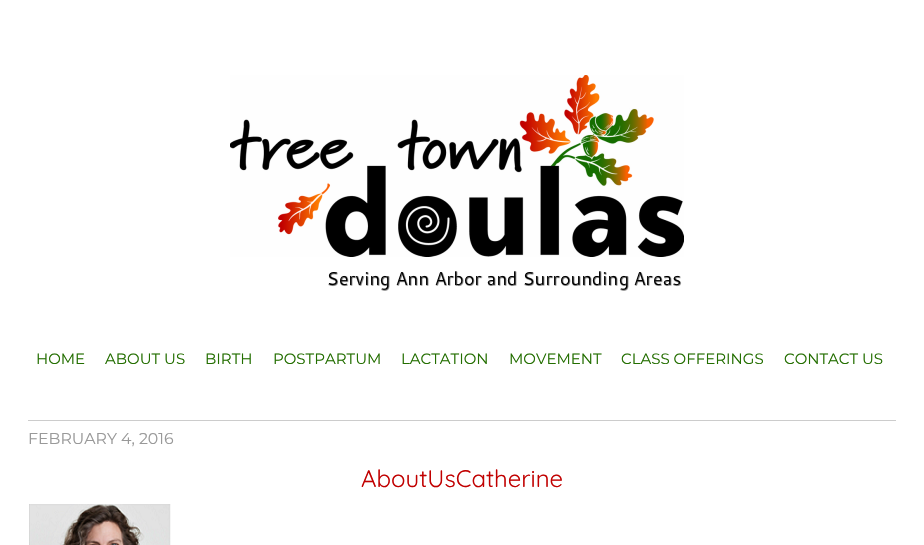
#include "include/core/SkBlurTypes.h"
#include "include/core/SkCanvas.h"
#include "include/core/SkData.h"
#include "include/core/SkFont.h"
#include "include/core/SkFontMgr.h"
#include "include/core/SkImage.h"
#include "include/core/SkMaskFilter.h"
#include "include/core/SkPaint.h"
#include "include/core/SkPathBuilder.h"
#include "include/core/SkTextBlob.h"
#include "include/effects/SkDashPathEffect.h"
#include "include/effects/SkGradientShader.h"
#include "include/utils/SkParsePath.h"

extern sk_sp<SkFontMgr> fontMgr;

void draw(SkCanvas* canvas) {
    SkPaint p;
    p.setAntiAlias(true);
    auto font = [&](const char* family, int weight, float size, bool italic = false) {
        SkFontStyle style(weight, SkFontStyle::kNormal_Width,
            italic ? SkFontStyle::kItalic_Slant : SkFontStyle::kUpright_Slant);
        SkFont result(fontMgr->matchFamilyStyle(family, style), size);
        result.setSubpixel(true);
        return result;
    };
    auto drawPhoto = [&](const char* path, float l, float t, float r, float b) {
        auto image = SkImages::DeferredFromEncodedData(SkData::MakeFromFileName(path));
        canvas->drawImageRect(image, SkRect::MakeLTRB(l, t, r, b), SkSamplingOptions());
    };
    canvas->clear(0xFFFFFFFF);
    p.setColor(0xFFCCCCCC);
    canvas->drawRect(SkRect::MakeLTRB(28, 420, 896, 421), p);
    drawPhoto("media/1.png", 230, 75, 684, 291);
    auto font1 = font("Montserrat", 400, 15);
    p.setColor(0xFF236E00);
    {
        const struct { const char* s; float x, y; } items[] = {
            {"HOME", 36, 364},
            {"ABOUT US", 105, 364},
            {"BIRTH", 205, 364},
            {"POSTPARTUM", 273, 364},
            {"LACTATION", 401, 364},
            {"MOVEMENT", 509, 364},
            {"CLASS OFFERINGS", 621, 364},
            {"CONTACT US", 784, 364},
        };
        for (auto [s, x, y] : items) {
            canvas->drawString(s, x, y, font1, p);
        }
    }
    auto font2 = font("Montserrat", 400, 15.75f);
    p.setColor(0xFF999999);
    canvas->drawString("FEBRUARY 4, 2016", 28, 444, font2, p);
    auto font3 = font("Quicksand", 300, 24);
    p.setColor(0xFFC10000);
    canvas->drawString("AboutUsCatherine", 361, 487, font3, p);
    drawPhoto("media/2.png", 29, 504, 171, 545);
}
